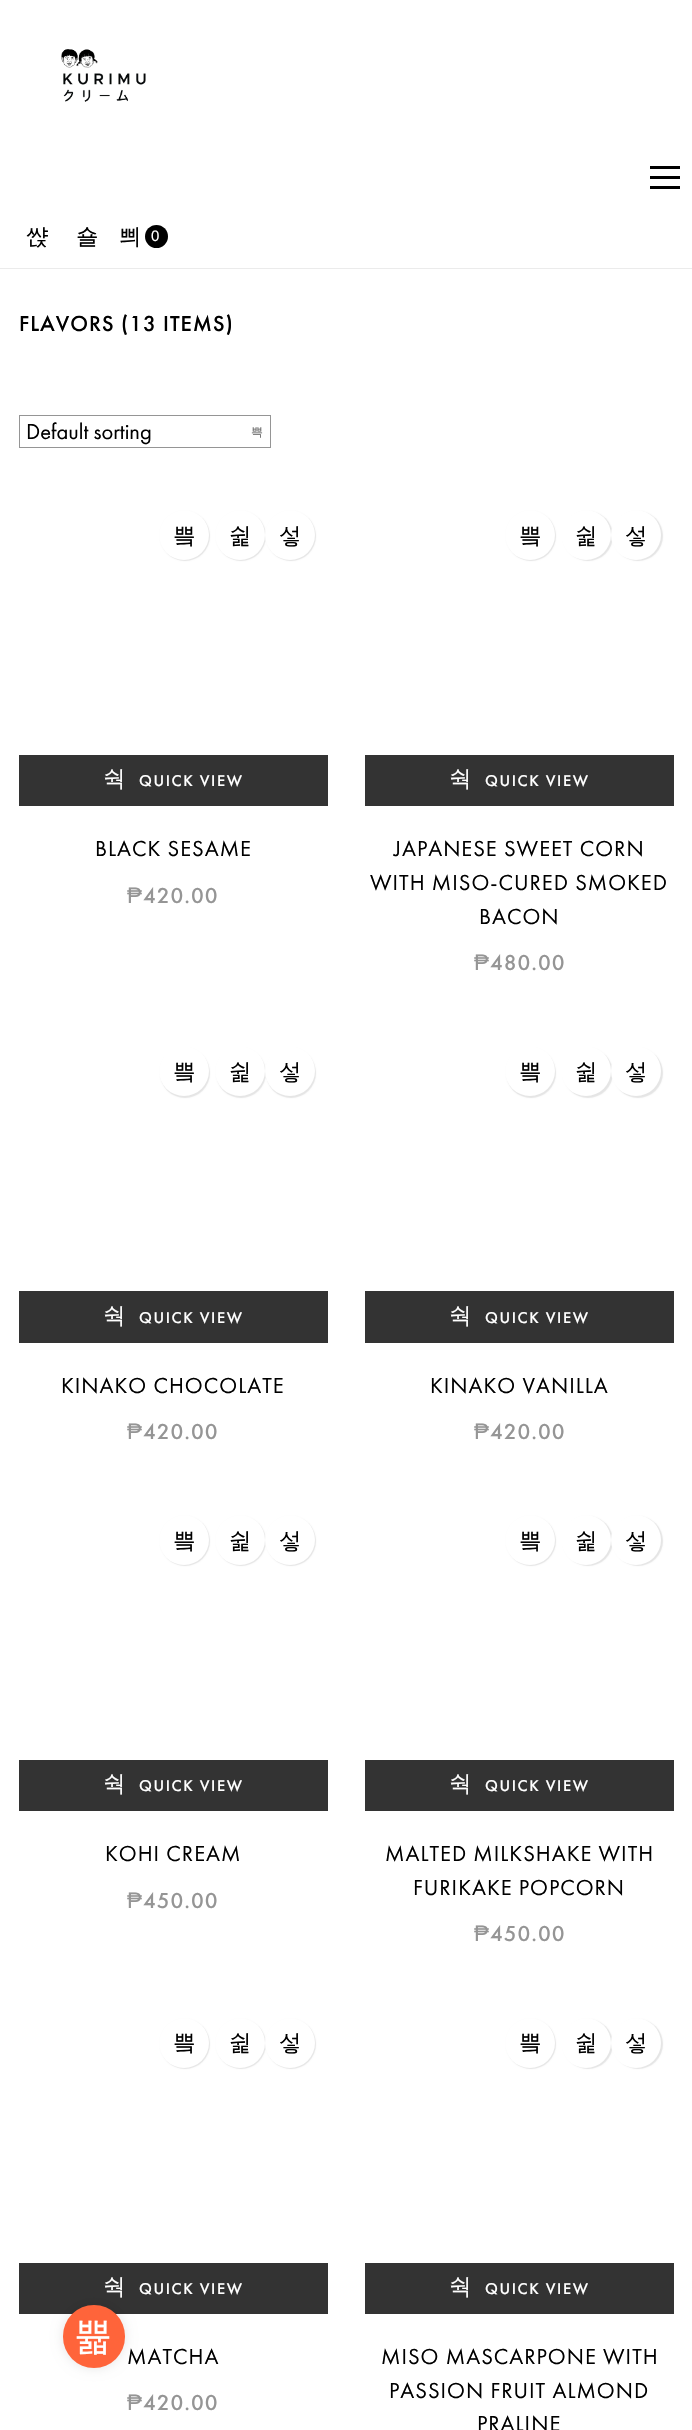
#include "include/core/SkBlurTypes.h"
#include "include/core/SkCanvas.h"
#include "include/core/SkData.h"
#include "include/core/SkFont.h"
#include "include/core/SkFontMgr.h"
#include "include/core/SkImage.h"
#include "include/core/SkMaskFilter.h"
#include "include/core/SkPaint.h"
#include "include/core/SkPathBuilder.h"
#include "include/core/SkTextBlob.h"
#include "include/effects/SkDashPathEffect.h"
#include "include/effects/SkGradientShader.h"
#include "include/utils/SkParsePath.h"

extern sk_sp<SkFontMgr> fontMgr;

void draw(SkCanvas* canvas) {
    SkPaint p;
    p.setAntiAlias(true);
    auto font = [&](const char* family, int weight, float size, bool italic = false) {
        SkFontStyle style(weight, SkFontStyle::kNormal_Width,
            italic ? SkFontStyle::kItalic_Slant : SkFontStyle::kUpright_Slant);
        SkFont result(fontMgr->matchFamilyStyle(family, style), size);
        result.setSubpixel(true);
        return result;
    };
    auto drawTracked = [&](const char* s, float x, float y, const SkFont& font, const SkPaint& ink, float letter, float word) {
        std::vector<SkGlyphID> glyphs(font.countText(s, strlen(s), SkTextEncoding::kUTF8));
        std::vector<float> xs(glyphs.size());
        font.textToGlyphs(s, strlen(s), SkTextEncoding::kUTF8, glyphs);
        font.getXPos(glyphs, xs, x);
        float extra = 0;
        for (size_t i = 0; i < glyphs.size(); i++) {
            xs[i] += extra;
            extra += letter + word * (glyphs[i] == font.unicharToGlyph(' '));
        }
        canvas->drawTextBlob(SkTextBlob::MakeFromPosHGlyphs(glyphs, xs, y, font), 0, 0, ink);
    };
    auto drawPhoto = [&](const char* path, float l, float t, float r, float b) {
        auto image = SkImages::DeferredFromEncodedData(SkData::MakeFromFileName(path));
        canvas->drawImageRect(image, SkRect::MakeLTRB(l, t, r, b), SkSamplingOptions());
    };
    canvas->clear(0xFFFFFFFF);
    drawPhoto("media/1.png", 61, 49, 146, 102);
    {
        const struct { float l, t, r, b; SkColor color; } items[] = {
            {0, 268, 692, 269, 0xFFEBEBEB},
            {650, 176, 680, 179, 0xFF000000},
            {650, 166, 680, 169, 0xFF000000},
            {650, 186, 680, 189, 0xFF000000},
        };
        for (auto [l, t, r, b, color] : items) {
            p.setColor(color);
            canvas->drawRect(SkRect::MakeLTRB(l, t, r, b), p);
        }
    }
    auto font1 = font("WenQuanYi Zen Hei", 500, 22.5f);
    {
        const struct { const char* s; float x, y; } items[] = {
            {"쌵", 26, 244},
            {"숄", 76, 244},
            {"쁴", 119, 244},
        };
        for (auto [s, x, y] : items) {
            drawTracked(s, x, y, font1, p, 1, 0);
        }
    }
    canvas->drawCircle(156.5f, 236.5f, 11.5f, p);
    auto font2 = font("Liberation Sans", 400, 15);
    p.setColor(0xFFFFFFFF);
    drawTracked("0", 151, 241, font2, p, 1, 0);
    auto font3 = font("Futura PT", 500, 22.5f);
    p.setColor(0xFF000000);
    drawTracked("FLAVORS (13 ITEMS)", 19, 331, font3, p, 1, 0);
    p.setStyle(SkPaint::kStroke_Style);
    p.setStrokeWidth(1);
    p.setColor(0xFF959595);
    canvas->drawRect(SkRect::MakeLTRB(19.5f, 415.5f, 270.5f, 447.5f), p);
    auto font4 = font("Futura PT", 400, 22.5f);
    p.setStyle(SkPaint::kFill_Style);
    p.setColor(0xFF000000);
    canvas->drawString("Default sorting", 26, 439, font4, p);
    auto font5 = font("WenQuanYi Zen Hei", 500, 12);
    p.setColor(0xFF666666);
    drawTracked("쁙", 251, 436, font5, p, 1, 0);
    p.setColor(0x1A000000);
    p.setMaskFilter(SkMaskFilter::MakeBlur(kNormal_SkBlurStyle, 0.5f));
    canvas->drawRoundRect(SkRect::MakeLTRB(160, 511, 210, 561), 25, 25, p);
    p.setMaskFilter(nullptr);
    p.setColor(0xFFFFFFFF);
    canvas->drawCircle(184, 535, 25, p);
    p.setColor(0xFF000000);
    canvas->drawString("쁰", 173, 543, font1, p);
    p.setColor(0x1A000000);
    p.setMaskFilter(SkMaskFilter::MakeBlur(kNormal_SkBlurStyle, 0.5f));
    canvas->drawRoundRect(SkRect::MakeLTRB(216, 511, 266, 561), 25, 25, p);
    p.setMaskFilter(nullptr);
    p.setColor(0xFFFFFFFF);
    canvas->drawCircle(240, 535, 25, p);
    p.setColor(0xFF000000);
    canvas->drawString("쉹", 229, 543, font1, p);
    p.setColor(0x1A000000);
    p.setMaskFilter(SkMaskFilter::MakeBlur(kNormal_SkBlurStyle, 0.5f));
    canvas->drawRoundRect(SkRect::MakeLTRB(266, 511, 316, 561), 25, 25, p);
    p.setMaskFilter(nullptr);
    p.setColor(0xFFFFFFFF);
    canvas->drawCircle(290, 535, 25, p);
    p.setColor(0xFF000000);
    canvas->drawString("섷", 279, 543, font1, p);
    p.setColor(0xFF333333);
    canvas->drawRect(SkRect::MakeLTRB(19, 755, 328, 806), p);
    p.setColor(0xFFFFFFFF);
    drawTracked("숵", 103, 786, font1, p, 1.6f, 0);
    auto font6 = font("Futura PT", 500, 16.25f);
    drawTracked("QUICK VIEW", 139, 786, font6, p, 1.6f, 0);
    p.setColor(0xFF000000);
    drawTracked("BLACK SESAME", 95, 856, font4, p, 1, 0);
    auto font7 = font("Liberation Sans", 400, 22.5f);
    p.setColor(0xFF959595);
    drawTracked("₱", 127, 903, font7, p, 1, 0);
    drawTracked("420.00", 143, 903, font3, p, 1, 0);
    p.setColor(0x1A000000);
    p.setMaskFilter(SkMaskFilter::MakeBlur(kNormal_SkBlurStyle, 0.5f));
    canvas->drawRoundRect(SkRect::MakeLTRB(506, 511, 556, 561), 25, 25, p);
    p.setMaskFilter(nullptr);
    p.setColor(0xFFFFFFFF);
    canvas->drawCircle(530, 535, 25, p);
    p.setColor(0xFF000000);
    canvas->drawString("쁰", 519, 543, font1, p);
    p.setColor(0x1A000000);
    p.setMaskFilter(SkMaskFilter::MakeBlur(kNormal_SkBlurStyle, 0.5f));
    canvas->drawRoundRect(SkRect::MakeLTRB(563, 511, 613, 561), 25, 25, p);
    p.setMaskFilter(nullptr);
    p.setColor(0xFFFFFFFF);
    canvas->drawCircle(586, 535, 25, p);
    p.setColor(0xFF000000);
    canvas->drawString("쉹", 575, 543, font1, p);
    p.setColor(0x1A000000);
    p.setMaskFilter(SkMaskFilter::MakeBlur(kNormal_SkBlurStyle, 0.5f));
    canvas->drawRoundRect(SkRect::MakeLTRB(613, 511, 663, 561), 25, 25, p);
    p.setMaskFilter(nullptr);
    p.setColor(0xFFFFFFFF);
    canvas->drawCircle(636, 535, 25, p);
    p.setColor(0xFF000000);
    canvas->drawString("섷", 625, 543, font1, p);
    p.setColor(0xFF333333);
    canvas->drawRect(SkRect::MakeLTRB(365, 755, 674, 806), p);
    p.setColor(0xFFFFFFFF);
    drawTracked("숵", 449, 786, font1, p, 1.6f, 0);
    drawTracked("QUICK VIEW", 485, 786, font6, p, 1.6f, 0);
    p.setColor(0xFF000000);
    {
        const struct { const char* s; float x, y; } items[] = {
            {"JAPANESE SWEET CORN", 394, 856},
            {"WITH MISO-CURED SMOKED", 370, 890},
            {"BACON", 479, 924},
        };
        for (auto [s, x, y] : items) {
            drawTracked(s, x, y, font4, p, 1, 0);
        }
    }
    p.setColor(0xFF959595);
    drawTracked("₱", 474, 970, font7, p, 1, 0);
    drawTracked("480.00", 490, 970, font3, p, 1, 0);
    p.setColor(0x1A000000);
    p.setMaskFilter(SkMaskFilter::MakeBlur(kNormal_SkBlurStyle, 0.5f));
    canvas->drawRoundRect(SkRect::MakeLTRB(160, 1048, 210, 1098), 25, 25, p);
    p.setMaskFilter(nullptr);
    p.setColor(0xFFFFFFFF);
    canvas->drawCircle(184, 1071, 25, p);
    p.setColor(0xFF000000);
    canvas->drawString("쁰", 173, 1079, font1, p);
    p.setColor(0x1A000000);
    p.setMaskFilter(SkMaskFilter::MakeBlur(kNormal_SkBlurStyle, 0.5f));
    canvas->drawRoundRect(SkRect::MakeLTRB(216, 1048, 266, 1098), 25, 25, p);
    p.setMaskFilter(nullptr);
    p.setColor(0xFFFFFFFF);
    canvas->drawCircle(240, 1071, 25, p);
    p.setColor(0xFF000000);
    canvas->drawString("쉹", 229, 1079, font1, p);
    p.setColor(0x1A000000);
    p.setMaskFilter(SkMaskFilter::MakeBlur(kNormal_SkBlurStyle, 0.5f));
    canvas->drawRoundRect(SkRect::MakeLTRB(266, 1048, 316, 1098), 25, 25, p);
    p.setMaskFilter(nullptr);
    p.setColor(0xFFFFFFFF);
    canvas->drawCircle(290, 1071, 25, p);
    p.setColor(0xFF000000);
    canvas->drawString("섷", 279, 1079, font1, p);
    p.setColor(0xFF333333);
    canvas->drawRect(SkRect::MakeLTRB(19, 1291, 328, 1343), p);
    p.setColor(0xFFFFFFFF);
    drawTracked("숵", 103, 1323, font1, p, 1.6f, 0);
    drawTracked("QUICK VIEW", 139, 1323, font6, p, 1.6f, 0);
    p.setColor(0xFF000000);
    drawTracked("KINAKO CHOCOLATE", 61, 1393, font4, p, 1, 0);
    p.setColor(0xFF959595);
    drawTracked("₱", 127, 1439, font7, p, 1, 0);
    drawTracked("420.00", 143, 1439, font3, p, 1, 0);
    p.setColor(0x1A000000);
    p.setMaskFilter(SkMaskFilter::MakeBlur(kNormal_SkBlurStyle, 0.5f));
    canvas->drawRoundRect(SkRect::MakeLTRB(506, 1048, 556, 1098), 25, 25, p);
    p.setMaskFilter(nullptr);
    p.setColor(0xFFFFFFFF);
    canvas->drawCircle(530, 1071, 25, p);
    p.setColor(0xFF000000);
    canvas->drawString("쁰", 519, 1079, font1, p);
    p.setColor(0x1A000000);
    p.setMaskFilter(SkMaskFilter::MakeBlur(kNormal_SkBlurStyle, 0.5f));
    canvas->drawRoundRect(SkRect::MakeLTRB(563, 1048, 613, 1098), 25, 25, p);
    p.setMaskFilter(nullptr);
    p.setColor(0xFFFFFFFF);
    canvas->drawCircle(586, 1071, 25, p);
    p.setColor(0xFF000000);
    canvas->drawString("쉹", 575, 1079, font1, p);
    p.setColor(0x1A000000);
    p.setMaskFilter(SkMaskFilter::MakeBlur(kNormal_SkBlurStyle, 0.5f));
    canvas->drawRoundRect(SkRect::MakeLTRB(613, 1048, 663, 1098), 25, 25, p);
    p.setMaskFilter(nullptr);
    p.setColor(0xFFFFFFFF);
    canvas->drawCircle(636, 1071, 25, p);
    p.setColor(0xFF000000);
    canvas->drawString("섷", 625, 1079, font1, p);
    p.setColor(0xFF333333);
    canvas->drawRect(SkRect::MakeLTRB(365, 1291, 674, 1343), p);
    p.setColor(0xFFFFFFFF);
    drawTracked("숵", 449, 1323, font1, p, 1.6f, 0);
    drawTracked("QUICK VIEW", 485, 1323, font6, p, 1.6f, 0);
    p.setColor(0xFF000000);
    drawTracked("KINAKO VANILLA", 430, 1393, font4, p, 1, 0);
    p.setColor(0xFF959595);
    drawTracked("₱", 474, 1439, font7, p, 1, 0);
    drawTracked("420.00", 490, 1439, font3, p, 1, 0);
    p.setColor(0x1A000000);
    p.setMaskFilter(SkMaskFilter::MakeBlur(kNormal_SkBlurStyle, 0.5f));
    canvas->drawRoundRect(SkRect::MakeLTRB(160, 1516, 210, 1566), 25, 25, p);
    p.setMaskFilter(nullptr);
    p.setColor(0xFFFFFFFF);
    canvas->drawCircle(184, 1540, 25, p);
    p.setColor(0xFF000000);
    canvas->drawString("쁰", 173, 1548, font1, p);
    p.setColor(0x1A000000);
    p.setMaskFilter(SkMaskFilter::MakeBlur(kNormal_SkBlurStyle, 0.5f));
    canvas->drawRoundRect(SkRect::MakeLTRB(216, 1516, 266, 1566), 25, 25, p);
    p.setMaskFilter(nullptr);
    p.setColor(0xFFFFFFFF);
    canvas->drawCircle(240, 1540, 25, p);
    p.setColor(0xFF000000);
    canvas->drawString("쉹", 229, 1548, font1, p);
    p.setColor(0x1A000000);
    p.setMaskFilter(SkMaskFilter::MakeBlur(kNormal_SkBlurStyle, 0.5f));
    canvas->drawRoundRect(SkRect::MakeLTRB(266, 1516, 316, 1566), 25, 25, p);
    p.setMaskFilter(nullptr);
    p.setColor(0xFFFFFFFF);
    canvas->drawCircle(290, 1540, 25, p);
    p.setColor(0xFF000000);
    canvas->drawString("섷", 279, 1548, font1, p);
    p.setColor(0xFF333333);
    canvas->drawRect(SkRect::MakeLTRB(19, 1760, 328, 1811), p);
    p.setColor(0xFFFFFFFF);
    drawTracked("숵", 103, 1791, font1, p, 1.6f, 0);
    drawTracked("QUICK VIEW", 139, 1791, font6, p, 1.6f, 0);
    p.setColor(0xFF000000);
    drawTracked("KOHI CREAM", 105, 1861, font4, p, 1, 0);
    p.setColor(0xFF959595);
    drawTracked("₱", 127, 1908, font7, p, 1, 0);
    drawTracked("450.00", 143, 1908, font3, p, 1, 0);
    p.setColor(0x1A000000);
    p.setMaskFilter(SkMaskFilter::MakeBlur(kNormal_SkBlurStyle, 0.5f));
    canvas->drawRoundRect(SkRect::MakeLTRB(506, 1516, 556, 1566), 25, 25, p);
    p.setMaskFilter(nullptr);
    p.setColor(0xFFFFFFFF);
    canvas->drawCircle(530, 1540, 25, p);
    p.setColor(0xFF000000);
    canvas->drawString("쁰", 519, 1548, font1, p);
    p.setColor(0x1A000000);
    p.setMaskFilter(SkMaskFilter::MakeBlur(kNormal_SkBlurStyle, 0.5f));
    canvas->drawRoundRect(SkRect::MakeLTRB(563, 1516, 613, 1566), 25, 25, p);
    p.setMaskFilter(nullptr);
    p.setColor(0xFFFFFFFF);
    canvas->drawCircle(586, 1540, 25, p);
    p.setColor(0xFF000000);
    canvas->drawString("쉹", 575, 1548, font1, p);
    p.setColor(0x1A000000);
    p.setMaskFilter(SkMaskFilter::MakeBlur(kNormal_SkBlurStyle, 0.5f));
    canvas->drawRoundRect(SkRect::MakeLTRB(613, 1516, 663, 1566), 25, 25, p);
    p.setMaskFilter(nullptr);
    p.setColor(0xFFFFFFFF);
    canvas->drawCircle(636, 1540, 25, p);
    p.setColor(0xFF000000);
    canvas->drawString("섷", 625, 1548, font1, p);
    p.setColor(0xFF333333);
    canvas->drawRect(SkRect::MakeLTRB(365, 1760, 674, 1811), p);
    p.setColor(0xFFFFFFFF);
    drawTracked("숵", 449, 1791, font1, p, 1.6f, 0);
    drawTracked("QUICK VIEW", 485, 1791, font6, p, 1.6f, 0);
    p.setColor(0xFF000000);
    drawTracked("MALTED MILKSHAKE WITH", 385, 1861, font4, p, 1, 0);
    drawTracked("FURIKAKE POPCORN", 413, 1895, font4, p, 1, 0);
    p.setColor(0xFF959595);
    drawTracked("₱", 474, 1941, font7, p, 1, 0);
    drawTracked("450.00", 490, 1941, font3, p, 1, 0);
    p.setColor(0x1A000000);
    p.setMaskFilter(SkMaskFilter::MakeBlur(kNormal_SkBlurStyle, 0.5f));
    canvas->drawRoundRect(SkRect::MakeLTRB(160, 2019, 210, 2069), 25, 25, p);
    p.setMaskFilter(nullptr);
    p.setColor(0xFFFFFFFF);
    canvas->drawCircle(184, 2043, 25, p);
    p.setColor(0xFF000000);
    canvas->drawString("쁰", 173, 2050, font1, p);
    p.setColor(0x1A000000);
    p.setMaskFilter(SkMaskFilter::MakeBlur(kNormal_SkBlurStyle, 0.5f));
    canvas->drawRoundRect(SkRect::MakeLTRB(216, 2019, 266, 2069), 25, 25, p);
    p.setMaskFilter(nullptr);
    p.setColor(0xFFFFFFFF);
    canvas->drawCircle(240, 2043, 25, p);
    p.setColor(0xFF000000);
    canvas->drawString("쉹", 229, 2050, font1, p);
    p.setColor(0x1A000000);
    p.setMaskFilter(SkMaskFilter::MakeBlur(kNormal_SkBlurStyle, 0.5f));
    canvas->drawRoundRect(SkRect::MakeLTRB(266, 2019, 316, 2069), 25, 25, p);
    p.setMaskFilter(nullptr);
    p.setColor(0xFFFFFFFF);
    canvas->drawCircle(290, 2043, 25, p);
    p.setColor(0xFF000000);
    canvas->drawString("섷", 279, 2050, font1, p);
    p.setColor(0xFF333333);
    canvas->drawRect(SkRect::MakeLTRB(19, 2263, 328, 2314), p);
    p.setColor(0xFFFFFFFF);
    drawTracked("숵", 103, 2294, font1, p, 1.6f, 0);
    drawTracked("QUICK VIEW", 139, 2294, font6, p, 1.6f, 0);
    p.setColor(0xFF000000);
    drawTracked("MATCHA", 127, 2364, font4, p, 1, 0);
    p.setColor(0xFF959595);
    drawTracked("₱", 127, 2410, font7, p, 1, 0);
    drawTracked("420.00", 143, 2410, font3, p, 1, 0);
    p.setColor(0x1A000000);
    p.setMaskFilter(SkMaskFilter::MakeBlur(kNormal_SkBlurStyle, 0.5f));
    canvas->drawRoundRect(SkRect::MakeLTRB(506, 2019, 556, 2069), 25, 25, p);
    p.setMaskFilter(nullptr);
    p.setColor(0xFFFFFFFF);
    canvas->drawCircle(530, 2043, 25, p);
    p.setColor(0xFF000000);
    canvas->drawString("쁰", 519, 2050, font1, p);
    p.setColor(0x1A000000);
    p.setMaskFilter(SkMaskFilter::MakeBlur(kNormal_SkBlurStyle, 0.5f));
    canvas->drawRoundRect(SkRect::MakeLTRB(563, 2019, 613, 2069), 25, 25, p);
    p.setMaskFilter(nullptr);
    p.setColor(0xFFFFFFFF);
    canvas->drawCircle(586, 2043, 25, p);
    p.setColor(0xFF000000);
    canvas->drawString("쉹", 575, 2050, font1, p);
    p.setColor(0x1A000000);
    p.setMaskFilter(SkMaskFilter::MakeBlur(kNormal_SkBlurStyle, 0.5f));
    canvas->drawRoundRect(SkRect::MakeLTRB(613, 2019, 663, 2069), 25, 25, p);
    p.setMaskFilter(nullptr);
    p.setColor(0xFFFFFFFF);
    canvas->drawCircle(636, 2043, 25, p);
    p.setColor(0xFF000000);
    canvas->drawString("섷", 625, 2050, font1, p);
    p.setColor(0xFF333333);
    canvas->drawRect(SkRect::MakeLTRB(365, 2263, 674, 2314), p);
    p.setColor(0xFFFFFFFF);
    drawTracked("숵", 449, 2294, font1, p, 1.6f, 0);
    drawTracked("QUICK VIEW", 485, 2294, font6, p, 1.6f, 0);
    p.setColor(0xFF000000);
    {
        const struct { const char* s; float x, y; } items[] = {
            {"MISO MASCARPONE WITH", 381, 2364},
            {"PASSION FRUIT ALMOND", 389, 2398},
            {"PRALINE", 477, 2431},
        };
        for (auto [s, x, y] : items) {
            drawTracked(s, x, y, font4, p, 1, 0);
        }
    }
    p.setColor(0x1A000000);
    p.setMaskFilter(SkMaskFilter::MakeBlur(kNormal_SkBlurStyle, 6));
    canvas->drawRoundRect(SkRect::MakeLTRB(63, 2305, 125, 2368), 31, 31, p);
    p.setMaskFilter(nullptr);
    p.setColor(0xFFFF643A);
    canvas->drawRoundRect(SkRect::MakeLTRB(63, 2305, 125, 2368), 31, 31, p);
    auto font8 = font("WenQuanYi Zen Hei", 500, 38);
    p.setColor(0xFFFFFFFF);
    drawTracked("쁇", 74, 2349, font8, p, 1, 0);
}
